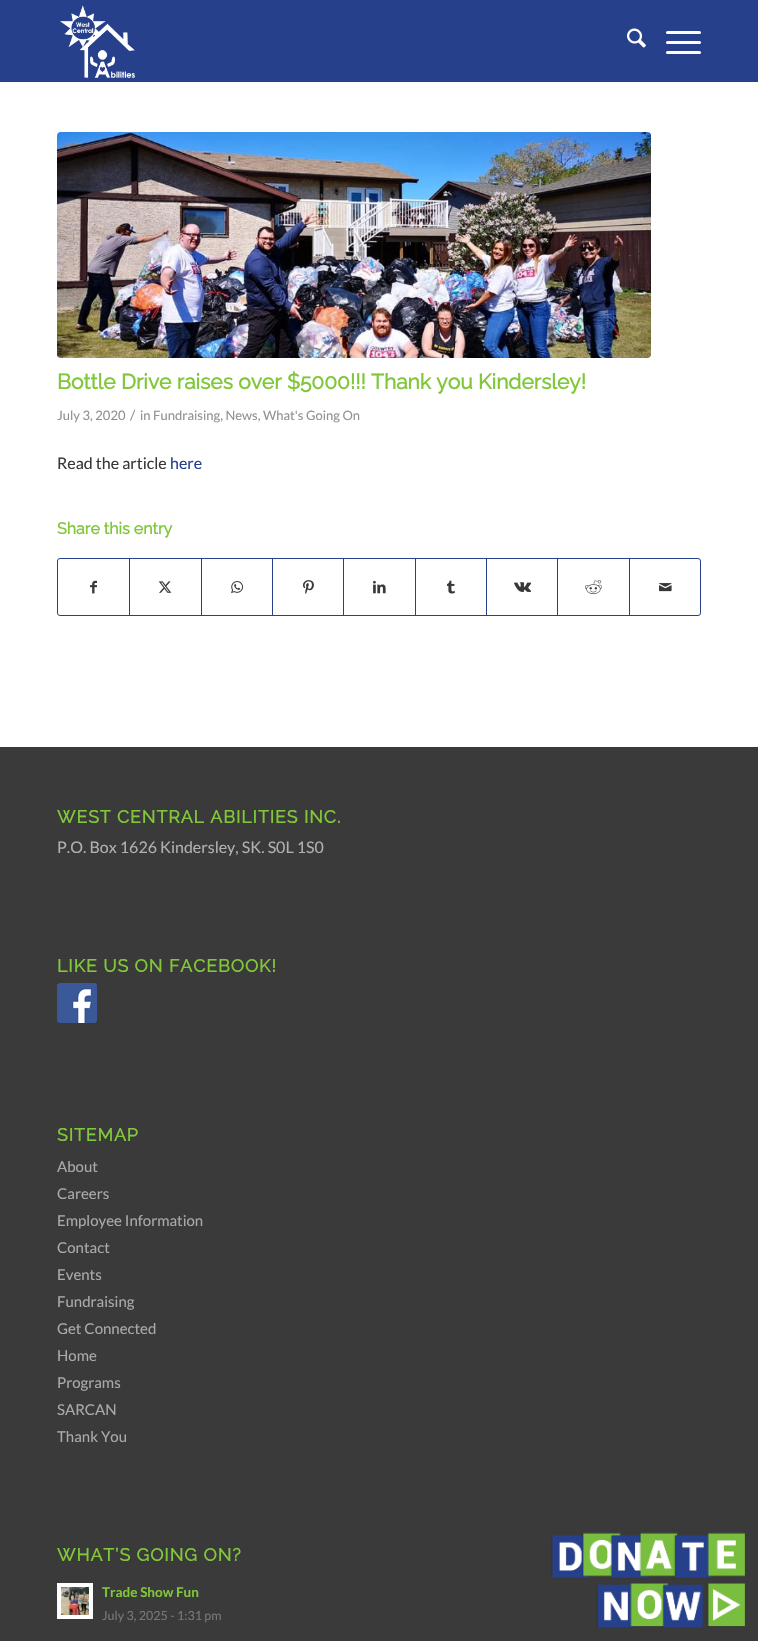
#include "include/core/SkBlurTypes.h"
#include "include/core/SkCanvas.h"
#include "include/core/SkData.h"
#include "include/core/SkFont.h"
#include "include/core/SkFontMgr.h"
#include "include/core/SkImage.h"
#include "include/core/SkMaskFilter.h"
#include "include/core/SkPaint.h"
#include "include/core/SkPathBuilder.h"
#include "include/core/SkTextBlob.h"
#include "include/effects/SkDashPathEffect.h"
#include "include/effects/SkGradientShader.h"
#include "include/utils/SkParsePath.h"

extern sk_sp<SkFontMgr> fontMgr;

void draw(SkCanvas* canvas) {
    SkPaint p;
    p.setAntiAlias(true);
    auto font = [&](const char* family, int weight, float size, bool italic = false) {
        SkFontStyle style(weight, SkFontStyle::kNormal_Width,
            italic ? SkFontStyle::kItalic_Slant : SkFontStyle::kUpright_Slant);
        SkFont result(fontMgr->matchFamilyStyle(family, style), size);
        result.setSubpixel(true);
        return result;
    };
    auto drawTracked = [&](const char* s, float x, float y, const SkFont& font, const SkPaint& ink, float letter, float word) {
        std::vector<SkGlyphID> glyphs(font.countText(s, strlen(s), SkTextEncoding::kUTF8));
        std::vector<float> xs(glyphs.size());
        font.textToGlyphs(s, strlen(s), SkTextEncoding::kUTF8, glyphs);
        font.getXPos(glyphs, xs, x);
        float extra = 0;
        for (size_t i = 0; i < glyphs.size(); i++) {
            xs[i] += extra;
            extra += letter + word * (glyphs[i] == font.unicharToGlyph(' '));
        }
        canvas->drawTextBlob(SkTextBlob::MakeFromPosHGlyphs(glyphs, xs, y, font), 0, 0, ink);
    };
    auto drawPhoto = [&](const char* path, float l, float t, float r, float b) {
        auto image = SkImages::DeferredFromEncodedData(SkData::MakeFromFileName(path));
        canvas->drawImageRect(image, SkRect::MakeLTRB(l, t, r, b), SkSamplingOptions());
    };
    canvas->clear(0xFFFFFFFF);
    p.setColor(0xFF27408B);
    canvas->drawRect(SkRect::MakeLTRB(0, 0, 758, 82), p);
    drawPhoto("media/1.png", 60, 5, 135, 78);
    drawPhoto("media/2.png", 627, 28, 646, 48);
    p.setColor(0xFFFFFFFF);
    canvas->drawRoundRect(SkRect::MakeLTRB(666, 41, 701, 44), 1.5f, 1.5f, p);
    canvas->drawRoundRect(SkRect::MakeLTRB(666, 31, 701, 34), 1.5f, 1.5f, p);
    canvas->drawRoundRect(SkRect::MakeLTRB(666, 51, 701, 54), 1.5f, 1.5f, p);
    drawPhoto("media/3.png", 57, 132, 651, 358);
    auto font1 = font("Raleway", 700, 21);
    p.setColor(0xFF80C739);
    canvas->drawString("Bottle Drive raises over $5000!!! Thank you Kindersley!", 57, 389, font1, p);
    auto font2 = font("Lato", 400, 13);
    p.setColor(0xFF919191);
    canvas->drawString("July 3, 2020", 57, 420, font2, p);
    auto font3 = font("Lato", 400, 14);
    canvas->drawString("/", 130, 420, font3, p);
    canvas->drawString("in Fundraising, News, What's Going On", 140, 420, font2, p);
    auto font4 = font("Lato", 400, 16);
    p.setColor(0xFF383838);
    canvas->drawString("Read the article", 57, 469, font4, p);
    p.setColor(0xFF27408B);
    canvas->drawString("here", 170, 469, font4, p);
    auto font5 = font("Raleway", 700, 16);
    p.setColor(0xFF80C739);
    canvas->drawString("Share this entry", 57, 534, font5, p);
    p.setStyle(SkPaint::kStroke_Style);
    p.setStrokeWidth(1);
    p.setColor(0xFF27408B);
    canvas->drawRoundRect(SkRect::MakeLTRB(57.5f, 558.5f, 700.5f, 615.5f), 2.5f, 2.5f, p);
    drawPhoto("media/4.png", 90, 580, 97, 594);
    p.setStyle(SkPaint::kFill_Style);
    canvas->drawRect(SkRect::MakeLTRB(129, 559, 130, 615), p);
    drawPhoto("media/5.png", 158, 581, 172, 593);
    canvas->drawRect(SkRect::MakeLTRB(201, 559, 202, 615), p);
    drawPhoto("media/6.png", 231, 581, 243, 594);
    canvas->drawRect(SkRect::MakeLTRB(272, 559, 273, 615), p);
    drawPhoto("media/7.png", 303, 580, 314, 594);
    canvas->drawRect(SkRect::MakeLTRB(343, 559, 344, 615), p);
    drawPhoto("media/8.png", 373, 580, 386, 594);
    canvas->drawRect(SkRect::MakeLTRB(415, 559, 416, 615), p);
    drawPhoto("media/9.png", 447, 580, 455, 594);
    canvas->drawRect(SkRect::MakeLTRB(486, 559, 487, 615), p);
    drawPhoto("media/10.png", 514, 582, 531, 592);
    canvas->drawRect(SkRect::MakeLTRB(557, 559, 558, 615), p);
    drawPhoto("media/11.png", 585, 580, 602, 595);
    canvas->drawRect(SkRect::MakeLTRB(629, 559, 630, 615), p);
    drawPhoto("media/12.png", 659, 583, 672, 592);
    p.setColor(0xFF3A3A3A);
    canvas->drawRect(SkRect::MakeLTRB(0, 747, 758, 1641), p);
    p.setColor(0xFFFCFCFC);
    canvas->drawRect(SkRect::MakeLTRB(0, 746, 758, 747), p);
    auto font6 = font("Raleway", 700, 17.6f);
    p.setColor(0xFF80C739);
    drawTracked("WEST CENTRAL ABILITIES INC.", 57, 823, font6, p, 1, 0);
    p.setColor(0xFFB0B0B0);
    canvas->drawString("P.O. Box 1626 Kindersley, SK. S0L 1S0", 57, 853, font4, p);
    p.setColor(0xFF80C739);
    drawTracked("LIKE US ON FACEBOOK!", 57, 972, font6, p, 1, 0);
    drawPhoto("media/13.png", 57, 983, 97, 1023);
    drawTracked("SITEMAP", 57, 1141, font6, p, 1, 0);
    auto font7 = font("Lato", 400, 15);
    p.setColor(0xFFAAAAAA);
    {
        const struct { const char* s; float x, y; } items[] = {
            {"About", 57, 1172},
            {"Careers", 57, 1199},
            {"Employee Information", 57, 1226},
            {"Contact", 57, 1253},
            {"Events", 57, 1280},
            {"Fundraising", 57, 1307},
            {"Get Connected", 57, 1334},
            {"Home", 57, 1361},
            {"Programs", 57, 1388},
            {"SARCAN", 57, 1415},
            {"Thank You", 57, 1442},
        };
        for (auto [s, x, y] : items) {
            canvas->drawString(s, x, y, font7, p);
        }
    }
    p.setColor(0xFF80C739);
    drawTracked("WHAT’S GOING ON?", 57, 1561, font6, p, 1, 0);
    p.setColor(0xFFFFFFFF);
    canvas->drawRect(SkRect::MakeLTRB(57.5f, 1583.5f, 92.5f, 1618.5f), p);
    p.setStyle(SkPaint::kStroke_Style);
    p.setColor(0xFFFCFCFC);
    canvas->drawRect(SkRect::MakeLTRB(57.5f, 1583.5f, 92.5f, 1618.5f), p);
    drawPhoto("media/14.png", 61, 1587, 89, 1615);
    auto font8 = font("Lato", 700, 13.5f);
    p.setStyle(SkPaint::kFill_Style);
    p.setColor(0xFF80C739);
    canvas->drawString("Trade Show Fun", 102, 1597, font8, p);
    auto font9 = font("Lato", 400, 12.5f);
    p.setColor(0xFF777777);
    canvas->drawString("July 3, 2025 - 1:31 pm", 102, 1620, font9, p);
    drawPhoto("media/15.png", 551, 1532, 745, 1628);
}
